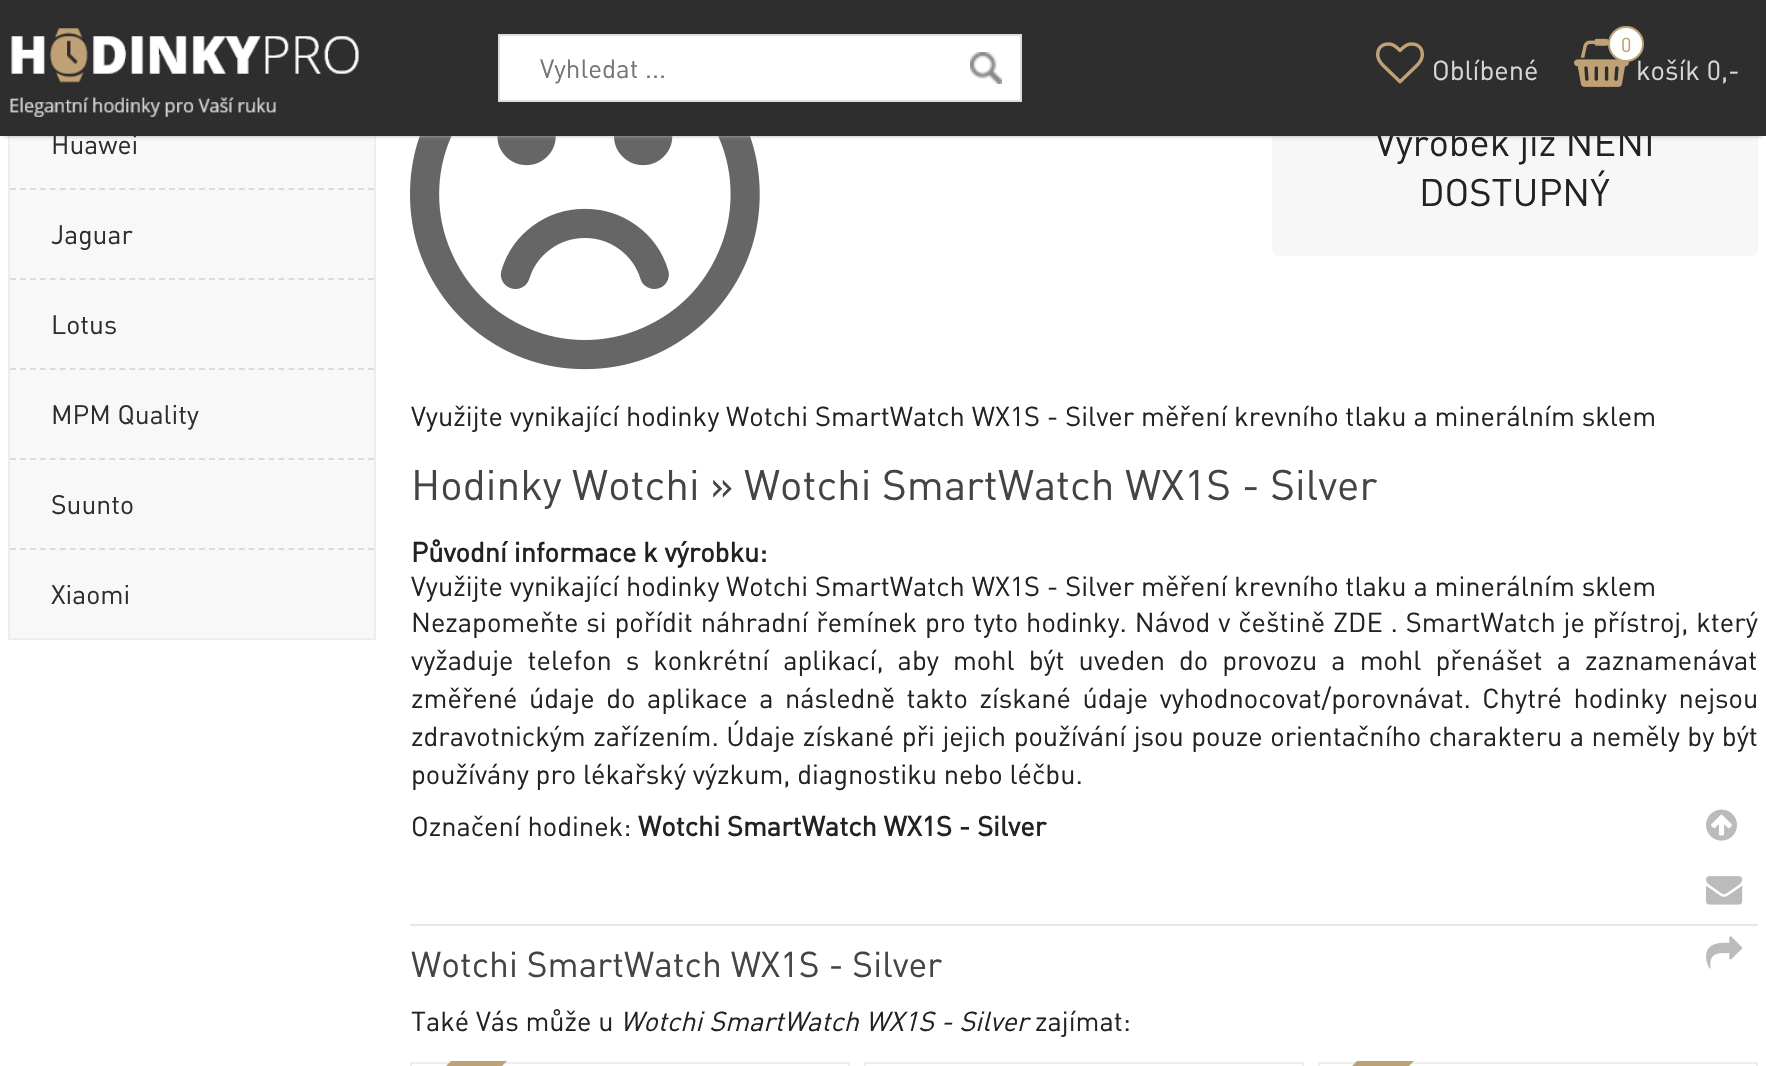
#include "include/core/SkBlurTypes.h"
#include "include/core/SkCanvas.h"
#include "include/core/SkData.h"
#include "include/core/SkFont.h"
#include "include/core/SkFontMgr.h"
#include "include/core/SkImage.h"
#include "include/core/SkMaskFilter.h"
#include "include/core/SkPaint.h"
#include "include/core/SkPathBuilder.h"
#include "include/core/SkTextBlob.h"
#include "include/effects/SkDashPathEffect.h"
#include "include/effects/SkGradientShader.h"
#include "include/utils/SkParsePath.h"

extern sk_sp<SkFontMgr> fontMgr;

void draw(SkCanvas* canvas) {
    SkPaint p;
    p.setAntiAlias(true);
    auto font = [&](const char* family, int weight, float size, bool italic = false) {
        SkFontStyle style(weight, SkFontStyle::kNormal_Width,
            italic ? SkFontStyle::kItalic_Slant : SkFontStyle::kUpright_Slant);
        SkFont result(fontMgr->matchFamilyStyle(family, style), size);
        result.setSubpixel(true);
        return result;
    };
    auto drawTracked = [&](const char* s, float x, float y, const SkFont& font, const SkPaint& ink, float letter, float word) {
        std::vector<SkGlyphID> glyphs(font.countText(s, strlen(s), SkTextEncoding::kUTF8));
        std::vector<float> xs(glyphs.size());
        font.textToGlyphs(s, strlen(s), SkTextEncoding::kUTF8, glyphs);
        font.getXPos(glyphs, xs, x);
        float extra = 0;
        for (size_t i = 0; i < glyphs.size(); i++) {
            xs[i] += extra;
            extra += letter + word * (glyphs[i] == font.unicharToGlyph(' '));
        }
        canvas->drawTextBlob(SkTextBlob::MakeFromPosHGlyphs(glyphs, xs, y, font), 0, 0, ink);
    };
    auto drawPhoto = [&](const char* path, float l, float t, float r, float b) {
        auto image = SkImages::DeferredFromEncodedData(SkData::MakeFromFileName(path));
        canvas->drawImageRect(image, SkRect::MakeLTRB(l, t, r, b), SkSamplingOptions());
    };
    canvas->clear(0xFFFFFFFF);
    p.setColor(0xFFF8F8F8);
    canvas->drawRect(SkRect::MakeLTRB(10, 136, 374, 638), p);
    p.setStyle(SkPaint::kStroke_Style);
    p.setStrokeWidth(2);
    p.setColor(0xFFEEEEEE);
    canvas->drawRect(SkRect::MakeLTRB(9, -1, 375, 639), p);
    drawPhoto("media/5.png", 410, 136, 760, 370);
    p.setStyle(SkPaint::kFill_Style);
    p.setColor(0xFFF7F7F7);
    canvas->drawRoundRect(SkRect::MakeLTRB(1272, 76, 1758, 256), 6, 6, p);
    p.setColor(0xFFAAAAAA);
    p.setMaskFilter(SkMaskFilter::MakeBlur(kNormal_SkBlurStyle, 2));
    canvas->drawRect(SkRect::MakeLTRB(4, -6, 1762, 136), p);
    p.setMaskFilter(nullptr);
    auto font1 = font("DIN", 400, 38);
    p.setColor(0xFF222222);
    canvas->drawString("Výrobek již NENÍ", 1375, 156, font1, p);
    p.setColor(0xFF2E2E2E);
    canvas->drawRect(SkRect::MakeLTRB(0, 0, 1766, 136), p);
    drawPhoto("media/1.png", 10, 28, 359, 117);
    p.setColor(0xFFFFFFFF);
    canvas->drawRect(SkRect::MakeLTRB(500, 36, 1020, 100), p);
    drawPhoto("media/2.png", 970, 52, 1002, 84);
    p.setStyle(SkPaint::kStroke_Style);
    p.setColor(0xFFDDDDDD);
    canvas->drawRect(SkRect::MakeLTRB(499, 35, 1021, 101), p);
    auto font2 = font("DIN", 400, 26);
    p.setStyle(SkPaint::kFill_Style);
    p.setColor(0xFF757575);
    canvas->drawString("Vyhledat ...", 540, 78, font2, p);
    drawPhoto("media/3.png", 1376, 42, 1424, 84);
    auto font3 = font("DIN", 400, 27.2f);
    p.setColor(0xFFD8D8D8);
    canvas->drawString("Oblíbené", 1432, 80, font3, p);
    drawPhoto("media/4.png", 1574, 38, 1629, 87);
    canvas->drawString("košík 0,-", 1636, 80, font3, p);
    p.setColor(0xFFFFFFFF);
    canvas->drawCircle(1626, 44, 17, p);
    p.setStyle(SkPaint::kStroke_Style);
    p.setColor(0xFFC0A175);
    canvas->drawCircle(1626, 44, 17, p);
    auto font4 = font("DIN", 400, 20);
    p.setStyle(SkPaint::kFill_Style);
    canvas->drawString("0", 1621, 52, font4, p);
    p.setStyle(SkPaint::kStroke_Style);
    p.setColor(0xFFDBDBDB);
    p.setPathEffect(SkDashPathEffect::Make({{6, 3.94f}}, 0));
    canvas->drawPath(SkPathBuilder().moveTo(10, 189).lineTo(374, 189).detach(), p);
    p.setPathEffect(nullptr);
    auto font5 = font("DIN", 400, 26.5f);
    p.setStyle(SkPaint::kFill_Style);
    p.setColor(0xFF2E2E2E);
    canvas->drawString("Huawei", 51, 154, font5, p);
    p.setStyle(SkPaint::kStroke_Style);
    p.setColor(0xFFDBDBDB);
    p.setPathEffect(SkDashPathEffect::Make({{6, 3.94f}}, 0));
    canvas->drawPath(SkPathBuilder().moveTo(10, 279).lineTo(374, 279).detach(), p);
    p.setPathEffect(nullptr);
    p.setStyle(SkPaint::kFill_Style);
    p.setColor(0xFF2E2E2E);
    canvas->drawString("Jaguar", 51, 244, font5, p);
    p.setStyle(SkPaint::kStroke_Style);
    p.setColor(0xFFDBDBDB);
    p.setPathEffect(SkDashPathEffect::Make({{6, 3.94f}}, 0));
    canvas->drawPath(SkPathBuilder().moveTo(10, 369).lineTo(374, 369).detach(), p);
    p.setPathEffect(nullptr);
    p.setStyle(SkPaint::kFill_Style);
    p.setColor(0xFF2E2E2E);
    canvas->drawString("Lotus", 51, 334, font5, p);
    p.setStyle(SkPaint::kStroke_Style);
    p.setColor(0xFFDBDBDB);
    p.setPathEffect(SkDashPathEffect::Make({{6, 3.94f}}, 0));
    canvas->drawPath(SkPathBuilder().moveTo(10, 459).lineTo(374, 459).detach(), p);
    p.setPathEffect(nullptr);
    p.setStyle(SkPaint::kFill_Style);
    p.setColor(0xFF2E2E2E);
    canvas->drawString("MPM Quality", 51, 424, font5, p);
    p.setStyle(SkPaint::kStroke_Style);
    p.setColor(0xFFDBDBDB);
    p.setPathEffect(SkDashPathEffect::Make({{6, 3.94f}}, 0));
    canvas->drawPath(SkPathBuilder().moveTo(10, 549).lineTo(374, 549).detach(), p);
    p.setPathEffect(nullptr);
    p.setStyle(SkPaint::kFill_Style);
    p.setColor(0xFF2E2E2E);
    canvas->drawString("Suunto", 51, 514, font5, p);
    canvas->drawString("Xiaomi", 51, 604, font5, p);
    p.setColor(0xFF222222);
    canvas->drawString("DOSTUPNÝ", 1419, 206, font1, p);
    canvas->drawString("Využijte vynikající hodinky Wotchi SmartWatch WX1S - Silver měření krevního tlaku a minerálním sklem", 411, 426, font3, p);
    auto font6 = font("DIN", 400, 42.2f);
    p.setColor(0xFF444444);
    canvas->drawString("Hodinky Wotchi » Wotchi SmartWatch WX1S - Silver", 411, 500, font6, p);
    auto font7 = font("DIN", 700, 27.2f);
    p.setColor(0xFF222222);
    canvas->drawString("Původní informace k výrobku:", 411, 562, font7, p);
    canvas->drawString("Využijte vynikající hodinky Wotchi SmartWatch WX1S - Silver měření krevního tlaku a minerálním sklem", 411, 596, font3, p);
    drawTracked("Nezapomeňte si pořídit náhradní řemínek pro tyto hodinky. Návod v češtině ZDE . SmartWatch je přístroj, který", 411, 632, font3, p, 0, 1.1f);
    drawTracked("vyžaduje telefon s konkrétní aplikací, aby mohl být uveden do provozu a mohl přenášet a zaznamenávat", 411, 670, font3, p, 0, 7.25f);
    drawTracked("změřené údaje do aplikace a následně takto získané údaje vyhodnocovat/porovnávat. Chytré hodinky nejsou", 411, 708, font3, p, 0, 4.75f);
    drawTracked("zdravotnickým zařízením. Údaje získané při jejich používání jsou pouze orientačního charakteru a neměly by být", 411, 746, font3, p, 0, 0.75f);
    canvas->drawString("používány pro lékařský výzkum, diagnostiku nebo léčbu.", 411, 784, font3, p);
    canvas->drawString("Označení hodinek:", 411, 836, font3, p);
    canvas->drawString("Wotchi SmartWatch WX1S - Silver", 638, 836, font7, p);
    p.setColor(0xFFE7E7E7);
    canvas->drawRect(SkRect::MakeLTRB(410, 924, 1758, 926), p);
    auto font8 = font("DIN", 400, 35.4f);
    p.setColor(0xFF444444);
    canvas->drawString("Wotchi SmartWatch WX1S - Silver", 411, 977, font8, p);
    p.setColor(0xFF222222);
    canvas->drawString("Také Vás může u", 411, 1031, font3, p);
    auto font9 = font("DIN", 400, 27.2f, true);
    canvas->drawString("Wotchi SmartWatch WX1S - Silver", 620, 1031, font9, p);
    canvas->drawString("zajímat:", 1035, 1031, font3, p);
    p.setStyle(SkPaint::kStroke_Style);
    p.setColor(0xFFEEEEEE);
    canvas->drawRect(SkRect::MakeLTRB(411, 1063, 849, 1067), p);
    p.setStyle(SkPaint::kFill_Style);
    p.setColor(0xFFC0A175);
    canvas->drawPath(SkPathBuilder().moveTo(507, 1061).lineTo(411, 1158).lineTo(411, 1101).lineTo(451, 1061).close().detach(), p);
    p.setStyle(SkPaint::kStroke_Style);
    p.setColor(0xFFEEEEEE);
    canvas->drawRect(SkRect::MakeLTRB(865, 1063, 1303, 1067), p);
    canvas->drawRect(SkRect::MakeLTRB(1319, 1063, 1757, 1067), p);
    p.setStyle(SkPaint::kFill_Style);
    p.setColor(0xFFC0A175);
    canvas->drawPath(SkPathBuilder().moveTo(1414, 1061).lineTo(1317, 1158).lineTo(1317, 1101).lineTo(1357, 1061).close().detach(), p);
    drawPhoto("media/6.png", 1706, 809, 1737, 841);
    drawPhoto("media/7.png", 1706, 876, 1743, 905);
    drawPhoto("media/8.png", 1706, 936, 1743, 969);
}
